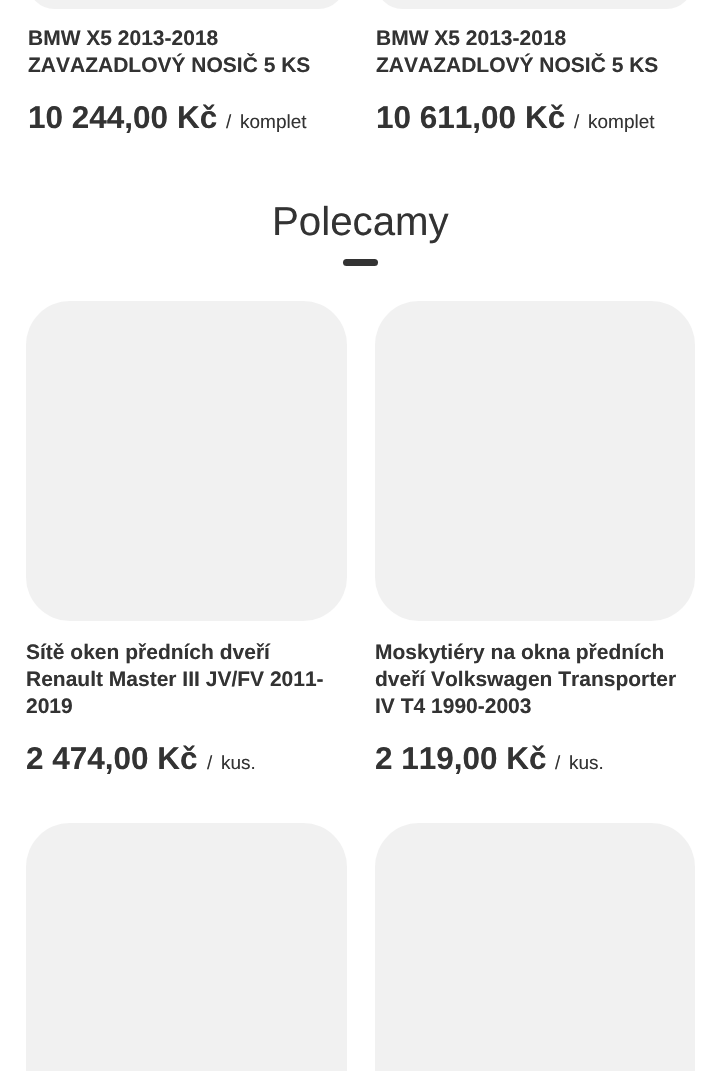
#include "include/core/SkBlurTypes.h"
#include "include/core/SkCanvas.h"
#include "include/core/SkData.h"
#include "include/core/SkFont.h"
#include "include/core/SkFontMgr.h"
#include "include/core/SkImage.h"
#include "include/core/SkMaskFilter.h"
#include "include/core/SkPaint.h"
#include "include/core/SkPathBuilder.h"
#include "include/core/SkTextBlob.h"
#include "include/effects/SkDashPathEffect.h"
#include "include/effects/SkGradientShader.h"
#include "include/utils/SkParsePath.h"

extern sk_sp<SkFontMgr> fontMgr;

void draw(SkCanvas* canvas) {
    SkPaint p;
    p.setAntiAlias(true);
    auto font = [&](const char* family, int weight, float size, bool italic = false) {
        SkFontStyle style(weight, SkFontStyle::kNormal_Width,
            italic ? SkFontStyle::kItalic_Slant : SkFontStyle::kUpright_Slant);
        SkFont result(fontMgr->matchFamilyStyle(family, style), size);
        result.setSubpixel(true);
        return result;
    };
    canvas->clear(0xFFFFFFFF);
    p.setColor(0xFFF1F1F1);
    canvas->drawRoundRect(SkRect::MakeLTRB(28, -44, 345, 9), 44, 44, p);
    auto font1 = font("Liberation Sans", 700, 21);
    p.setColor(0xFF333333);
    canvas->drawString("BMW X5 2013-2018", 28, 45, font1, p);
    canvas->drawString("ZAVAZADLOVÝ NOSIČ 5 KS", 28, 72, font1, p);
    auto font2 = font("Liberation Sans", 700, 31.5f);
    canvas->drawString("10 244,00 Kč", 28, 128, font2, p);
    auto font3 = font("Liberation Sans", 400, 19);
    canvas->drawString("/", 226, 128, font3, p);
    canvas->drawString("komplet", 240, 128, font3, p);
    p.setColor(0xFFF1F1F1);
    canvas->drawRoundRect(SkRect::MakeLTRB(376, -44, 693, 9), 44, 44, p);
    p.setColor(0xFF333333);
    canvas->drawString("BMW X5 2013-2018", 376, 45, font1, p);
    canvas->drawString("ZAVAZADLOVÝ NOSIČ 5 KS", 376, 72, font1, p);
    canvas->drawString("10 611,00 Kč", 376, 128, font2, p);
    canvas->drawString("/", 574, 128, font3, p);
    canvas->drawString("komplet", 588, 128, font3, p);
    auto font4 = font("Liberation Sans", 400, 40.25f);
    canvas->drawString("Polecamy", 272, 235, font4, p);
    canvas->drawRoundRect(SkRect::MakeLTRB(343, 259, 378, 266), 3.5f, 3.5f, p);
    p.setColor(0xFFF1F1F1);
    canvas->drawRoundRect(SkRect::MakeLTRB(26, 301, 347, 621), 44, 44, p);
    p.setColor(0xFF333333);
    {
        const struct { const char* s; float x, y; } items[] = {
            {"Sítě oken předních dveří", 26, 659},
            {"Renault Master III JV/FV 2011-", 26, 686},
            {"2019", 26, 713},
        };
        for (auto [s, x, y] : items) {
            canvas->drawString(s, x, y, font1, p);
        }
    }
    canvas->drawString("2 474,00 Kč", 26, 769, font2, p);
    canvas->drawString("/", 207, 769, font3, p);
    canvas->drawString("kus.", 221, 769, font3, p);
    p.setColor(0xFFF1F1F1);
    canvas->drawRoundRect(SkRect::MakeLTRB(375, 301, 695, 621), 44, 44, p);
    p.setColor(0xFF333333);
    {
        const struct { const char* s; float x, y; } items[] = {
            {"Moskytiéry na okna předních", 375, 659},
            {"dveří Volkswagen Transporter", 375, 686},
            {"IV T4 1990-2003", 375, 713},
        };
        for (auto [s, x, y] : items) {
            canvas->drawString(s, x, y, font1, p);
        }
    }
    canvas->drawString("2 119,00 Kč", 375, 769, font2, p);
    canvas->drawString("/", 555, 769, font3, p);
    canvas->drawString("kus.", 569, 769, font3, p);
    p.setColor(0xFFF1F1F1);
    canvas->drawRoundRect(SkRect::MakeLTRB(26, 823, 347, 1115), 44, 44, p);
    canvas->drawRoundRect(SkRect::MakeLTRB(375, 823, 695, 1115), 44, 44, p);
}
